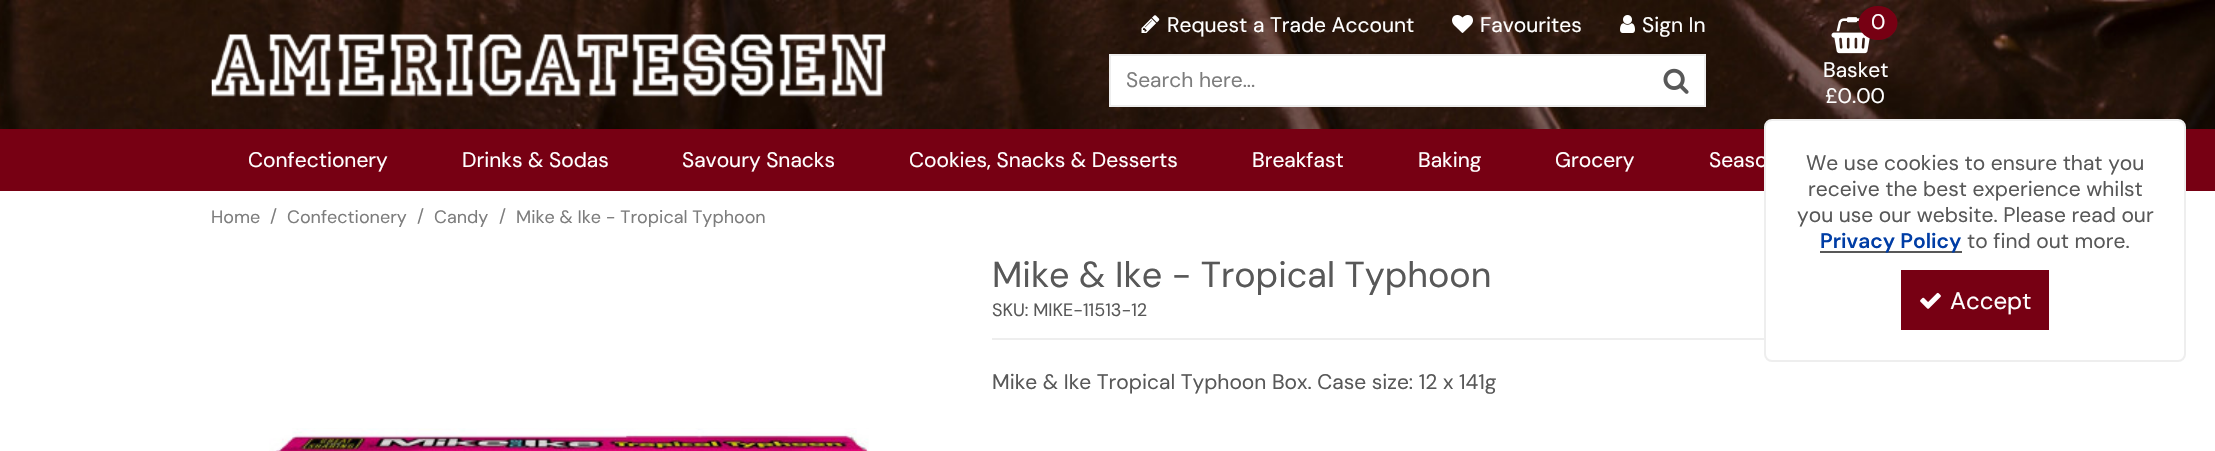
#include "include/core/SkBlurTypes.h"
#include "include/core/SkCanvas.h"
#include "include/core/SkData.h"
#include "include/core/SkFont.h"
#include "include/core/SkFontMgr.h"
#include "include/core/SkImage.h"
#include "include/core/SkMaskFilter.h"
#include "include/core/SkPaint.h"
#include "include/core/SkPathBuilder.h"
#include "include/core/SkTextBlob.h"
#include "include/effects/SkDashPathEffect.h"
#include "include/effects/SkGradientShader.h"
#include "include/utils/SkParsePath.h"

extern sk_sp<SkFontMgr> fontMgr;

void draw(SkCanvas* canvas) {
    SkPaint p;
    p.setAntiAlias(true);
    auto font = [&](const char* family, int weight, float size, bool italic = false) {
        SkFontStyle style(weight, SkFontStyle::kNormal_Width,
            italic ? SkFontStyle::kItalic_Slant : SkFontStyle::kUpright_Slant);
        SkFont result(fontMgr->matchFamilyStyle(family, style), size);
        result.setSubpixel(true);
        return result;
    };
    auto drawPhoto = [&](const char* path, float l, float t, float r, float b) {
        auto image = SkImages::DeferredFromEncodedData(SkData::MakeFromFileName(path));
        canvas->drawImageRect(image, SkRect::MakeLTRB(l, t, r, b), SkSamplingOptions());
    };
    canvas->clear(0xFFFFFFFF);
    drawPhoto("media/1.png", 0, 0, 2215, 129);
    drawPhoto("media/2.png", 211, 34, 886, 97);
    drawPhoto("media/3.png", 1141, 15, 1160, 33);
    auto font1 = font("DM Sans", 400, 21);
    p.setColor(0xFFFFFFFF);
    canvas->drawString("Request a Trade Account", 1167, 32, font1, p);
    drawPhoto("media/4.png", 1452, 15, 1473, 33);
    canvas->drawString("Favourites", 1480, 32, font1, p);
    drawPhoto("media/5.png", 1620, 15, 1635, 33);
    canvas->drawString("Sign In", 1642, 32, font1, p);
    {
        const struct { float l, t, r, b; SkColor color; } items[] = {
            {1111, 56, 1704, 105, 0xFFFFFFFF},
            {1109, 54, 1706, 56, 0xFFEEEEEE},
            {1704, 54, 1706, 107, 0xFFEEEEEE},
            {1109, 105, 1706, 107, 0xFFEEEEEE},
        };
        for (auto [l, t, r, b, color] : items) {
            p.setColor(color);
            canvas->drawRect(SkRect::MakeLTRB(l, t, r, b), p);
        }
    }
    drawPhoto("media/6.png", 1663, 68, 1689, 94);
    canvas->drawRect(SkRect::MakeLTRB(1109, 54, 1111, 107), p);
    p.setColor(0xFF7D7D7D);
    canvas->drawString("Search here...", 1126, 87, font1, p);
    drawPhoto("media/7.png", 1831, 17, 1870, 54);
    p.setColor(0xFF770013);
    canvas->drawOval(SkRect::MakeLTRB(1858.5f, 6, 1897.5f, 40), p);
    p.setColor(0xFFFFFFFF);
    {
        const struct { const char* s; float x, y; } items[] = {
            {"0", 1871, 29},
            {"Basket", 1823, 77},
            {"£0.00", 1825, 103},
        };
        for (auto [s, x, y] : items) {
            canvas->drawString(s, x, y, font1, p);
        }
    }
    p.setColor(0xFF770013);
    canvas->drawRect(SkRect::MakeLTRB(0, 129, 2215, 191), p);
    p.setColor(0xFFFFFFFF);
    {
        const struct { const char* s; float x, y; } items[] = {
            {"Confectionery", 248, 167},
            {"Drinks & Sodas", 462, 167},
            {"Savoury Snacks", 682, 167},
            {"Cookies, Snacks & Desserts", 909, 167},
            {"Breakfast", 1252, 167},
            {"Baking", 1418, 167},
            {"Grocery", 1555, 167},
            {"Seaso", 1709, 167},
        };
        for (auto [s, x, y] : items) {
            canvas->drawString(s, x, y, font1, p);
        }
    }
    auto font2 = font("DM Sans", 400, 18);
    p.setColor(0xFF7D7D7D);
    {
        const struct { const char* s; float x, y; } items[] = {
            {"Home", 211, 223},
            {"/", 270, 222},
            {"Confectionery", 287, 223},
            {"/", 417, 222},
            {"Candy", 434, 223},
            {"/", 499, 222},
            {"Mike & Ike - Tropical Typhoon", 516, 223},
        };
        for (auto [s, x, y] : items) {
            canvas->drawString(s, x, y, font2, p);
        }
    }
    auto font3 = font("DM Sans", 400, 36);
    p.setColor(0xFF585858);
    canvas->drawString("Mike & Ike - Tropical Typhoon", 992, 287, font3, p);
    canvas->drawString("SKU: MIKE-11513-12", 992, 316, font2, p);
    p.setColor(0xFFEEEEEE);
    canvas->drawRect(SkRect::MakeLTRB(992, 338, 1764, 340), p);
    p.setColor(0xFF585858);
    canvas->drawString("Mike & Ike Tropical Typhoon Box. Case size: 12 x 141g", 992, 389, font1, p);
    drawPhoto("media/8.png", 269, 428, 869, 451);
    p.setColor(0xFFFFFFFF);
    canvas->drawRoundRect(SkRect::MakeLTRB(1765, 120, 2185, 361), 7, 7, p);
    p.setStyle(SkPaint::kStroke_Style);
    p.setStrokeWidth(2);
    p.setColor(0xFFEEEEEE);
    canvas->drawRoundRect(SkRect::MakeLTRB(1765, 120, 2185, 361), 7, 7, p);
    p.setStyle(SkPaint::kFill_Style);
    p.setColor(0xFF585858);
    {
        const struct { const char* s; float x, y; } items[] = {
            {"We use cookies to ensure that you", 1806, 170},
            {"receive the best experience whilst", 1808, 196},
            {"you use our website. Please read our", 1797, 222},
        };
        for (auto [s, x, y] : items) {
            canvas->drawString(s, x, y, font1, p);
        }
    }
    canvas->drawRect(SkRect::MakeLTRB(1820, 251, 1962, 253), p);
    auto font4 = font("DM Sans", 600, 21);
    p.setColor(0xFF003DA5);
    canvas->drawString("Privacy Policy", 1820, 248, font4, p);
    p.setColor(0xFF585858);
    canvas->drawString("to find out more.", 1967, 248, font1, p);
    p.setColor(0xFF770013);
    canvas->drawRect(SkRect::MakeLTRB(1901, 270, 2049, 330), p);
    drawPhoto("media/9.png", 1920, 292, 1941, 309);
    auto font5 = font("DM Sans", 400, 24);
    p.setColor(0xFFFFFFFF);
    canvas->drawString("Accept", 1950, 309, font5, p);
}
